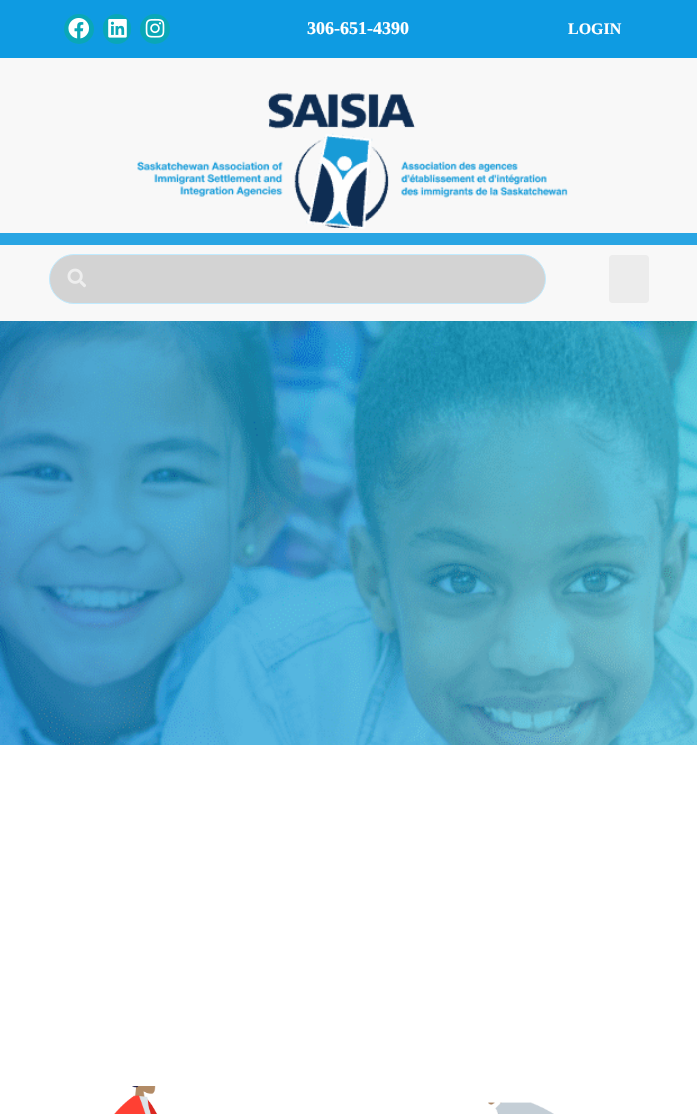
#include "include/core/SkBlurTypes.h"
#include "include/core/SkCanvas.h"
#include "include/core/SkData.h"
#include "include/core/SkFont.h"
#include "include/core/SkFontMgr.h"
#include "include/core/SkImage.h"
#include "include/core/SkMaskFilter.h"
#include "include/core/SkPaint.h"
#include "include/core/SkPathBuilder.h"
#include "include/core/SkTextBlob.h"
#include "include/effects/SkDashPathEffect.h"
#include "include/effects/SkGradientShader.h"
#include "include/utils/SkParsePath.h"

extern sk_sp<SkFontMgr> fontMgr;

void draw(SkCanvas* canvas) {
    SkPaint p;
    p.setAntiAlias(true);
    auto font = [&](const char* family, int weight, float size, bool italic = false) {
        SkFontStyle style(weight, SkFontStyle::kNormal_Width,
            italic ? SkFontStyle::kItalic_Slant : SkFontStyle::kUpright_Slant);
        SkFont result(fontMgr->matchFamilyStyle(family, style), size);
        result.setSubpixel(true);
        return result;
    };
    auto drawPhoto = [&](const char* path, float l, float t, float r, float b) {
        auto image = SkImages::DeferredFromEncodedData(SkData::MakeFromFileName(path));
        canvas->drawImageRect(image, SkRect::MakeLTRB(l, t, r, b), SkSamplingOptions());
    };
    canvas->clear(0xFFFFFFFF);
    p.setColor(0xFF0E9BE2);
    canvas->drawRect(SkRect::MakeLTRB(0, 0, 697, 58), p);
    p.setColor(0xFF09A7B7);
    canvas->drawCircle(79, 29, 15, p);
    drawPhoto("media/1.png", 68, 18, 89, 39);
    canvas->drawRoundRect(SkRect::MakeLTRB(103, 14, 131, 44), 14, 14, p);
    drawPhoto("media/2.png", 108, 19, 127, 38);
    canvas->drawCircle(155, 29, 15, p);
    drawPhoto("media/3.png", 145, 18, 165, 38);
    auto font1 = font("Liberation Serif", 700, 18);
    p.setColor(0xFFFFFFFF);
    canvas->drawString("306-651-4390", 307, 34, font1, p);
    auto font2 = font("Liberation Serif", 700, 16);
    canvas->drawString("LOGIN", 568, 34, font2, p);
    p.setColor(0xFFF8F8F8);
    canvas->drawRect(SkRect::MakeLTRB(0, 58, 697, 321), p);
    drawPhoto("media/4.png", 137, 93, 568, 229);
    p.setColor(0xFFD3D3D3);
    canvas->drawRoundRect(SkRect::MakeLTRB(49.5f, 254.5f, 545.5f, 303.5f), 24.5f, 24.5f, p);
    p.setStyle(SkPaint::kStroke_Style);
    p.setStrokeWidth(1);
    p.setColor(0xFFC1EBFF);
    canvas->drawRoundRect(SkRect::MakeLTRB(49.5f, 254.5f, 545.5f, 303.5f), 24.5f, 24.5f, p);
    drawPhoto("media/5.png", 67, 268, 86, 288);
    p.setStyle(SkPaint::kFill_Style);
    p.setColor(0xFFECECEC);
    canvas->drawRoundRect(SkRect::MakeLTRB(609, 255, 649, 303), 4, 4, p);
    p.setColor(0xFF29A5E3);
    canvas->drawRect(SkRect::MakeLTRB(0, 233, 697, 245), p);
    drawPhoto("media/6.png", 0, 321, 697, 745);
    drawPhoto("media/7.png", 114, 1086, 158, 1114);
    drawPhoto("media/8.png", 488, 1102, 554, 1114);
}
